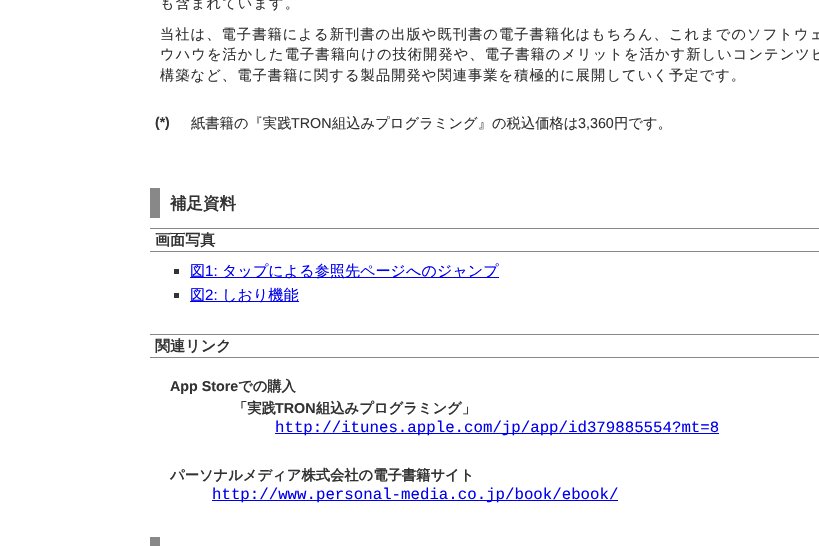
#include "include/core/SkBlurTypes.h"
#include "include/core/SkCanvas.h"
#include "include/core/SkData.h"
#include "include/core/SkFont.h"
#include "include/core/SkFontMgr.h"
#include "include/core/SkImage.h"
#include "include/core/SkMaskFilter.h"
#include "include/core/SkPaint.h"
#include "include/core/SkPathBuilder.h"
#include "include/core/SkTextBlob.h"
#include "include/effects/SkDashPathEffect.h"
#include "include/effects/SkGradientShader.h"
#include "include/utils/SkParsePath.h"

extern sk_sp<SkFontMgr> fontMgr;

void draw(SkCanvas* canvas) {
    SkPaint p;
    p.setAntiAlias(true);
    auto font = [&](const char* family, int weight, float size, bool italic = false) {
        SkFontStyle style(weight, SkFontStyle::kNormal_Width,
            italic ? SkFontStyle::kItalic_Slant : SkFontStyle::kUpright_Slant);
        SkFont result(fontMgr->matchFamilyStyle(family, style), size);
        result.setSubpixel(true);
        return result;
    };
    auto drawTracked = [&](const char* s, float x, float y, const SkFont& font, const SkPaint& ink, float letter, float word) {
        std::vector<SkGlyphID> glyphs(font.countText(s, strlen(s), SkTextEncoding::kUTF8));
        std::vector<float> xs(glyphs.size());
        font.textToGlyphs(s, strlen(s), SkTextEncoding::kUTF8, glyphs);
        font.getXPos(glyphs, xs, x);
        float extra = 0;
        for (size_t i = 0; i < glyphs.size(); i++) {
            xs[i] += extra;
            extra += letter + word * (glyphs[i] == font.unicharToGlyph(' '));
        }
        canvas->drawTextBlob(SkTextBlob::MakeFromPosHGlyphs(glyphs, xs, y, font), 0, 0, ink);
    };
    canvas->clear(0xFFFFFFFF);
    auto font1 = font("WenQuanYi Zen Hei", 500, 14.3f);
    p.setColor(0xFF333333);
    {
        const struct { const char* s; float x, y; } items[] = {
            {"も含まれています。", 160, 8},
            {"当社は、電子書籍による新刊書の出版や既刊書の電子書籍化はもちろん、これまでのソフトウェ", 160, 39},
            {"ウハウを活かした電子書籍向けの技術開発や、電子書籍のメリットを活かす新しいコンテンツビ", 160, 59},
            {"構築など、電子書籍に関する製品開発や関連事業を積極的に展開していく予定です。", 160, 80},
        };
        for (auto [s, x, y] : items) {
            drawTracked(s, x, y, font1, p, 1, 0);
        }
    }
    auto font2 = font("Liberation Sans", 700, 14);
    canvas->drawString("(*)", 155, 127, font2, p);
    canvas->drawString("紙書籍の『実践", 191, 128, font1, p);
    auto font3 = font("Liberation Sans", 400, 14.3f);
    canvas->drawString("TRON", 291, 128, font3, p);
    canvas->drawString("組込みプログラミング』の税込価格は", 332, 128, font1, p);
    canvas->drawString("3,360", 578, 128, font3, p);
    canvas->drawString("円です。", 614, 128, font1, p);
    p.setColor(0xFF888888);
    canvas->drawRect(SkRect::MakeLTRB(150, 188, 160, 218), p);
    auto font4 = font("WenQuanYi Zen Hei", 700, 16.5f);
    p.setColor(0xFF333333);
    canvas->drawString("補足資料", 170, 209, font4, p);
    p.setColor(0xFF888888);
    canvas->drawRect(SkRect::MakeLTRB(150, 228, 819, 229), p);
    canvas->drawRect(SkRect::MakeLTRB(150, 251, 819, 252), p);
    auto font5 = font("WenQuanYi Zen Hei", 700, 15.1f);
    p.setColor(0xFF333333);
    canvas->drawString("画面写真", 155, 245, font5, p);
    canvas->drawRect(SkRect::MakeLTRB(174, 269, 179, 274), p);
    p.setColor(0xFF0000EE);
    canvas->drawRect(SkRect::MakeLTRB(190, 277, 499, 278), p);
    auto font6 = font("WenQuanYi Zen Hei", 500, 15.1f);
    canvas->drawString("図", 190, 276, font6, p);
    auto font7 = font("Liberation Sans", 400, 15.1f);
    canvas->drawString("1:", 205, 276, font7, p);
    canvas->drawString("タップによる参照先ページへのジャンプ", 222, 276, font6, p);
    p.setColor(0xFF333333);
    canvas->drawRect(SkRect::MakeLTRB(174, 293, 179, 298), p);
    p.setColor(0xFF0000EE);
    canvas->drawRect(SkRect::MakeLTRB(190, 301, 299, 302), p);
    canvas->drawString("図", 190, 300, font6, p);
    canvas->drawString("2:", 205, 300, font7, p);
    canvas->drawString("しおり機能", 222, 300, font6, p);
    p.setColor(0xFF888888);
    canvas->drawRect(SkRect::MakeLTRB(150, 334, 819, 335), p);
    canvas->drawRect(SkRect::MakeLTRB(150, 357, 819, 358), p);
    p.setColor(0xFF333333);
    canvas->drawString("関連リンク", 155, 351, font5, p);
    auto font8 = font("Liberation Sans", 700, 14.3f);
    canvas->drawString("App Store", 170, 391, font8, p);
    auto font9 = font("WenQuanYi Zen Hei", 700, 14.3f);
    canvas->drawString("での購入", 238, 391, font9, p);
    canvas->drawString("「実践", 233, 413, font9, p);
    canvas->drawString("TRON", 275, 413, font8, p);
    canvas->drawString("組込みプログラミング」", 316, 413, font9, p);
    p.setColor(0xFF0000EE);
    canvas->drawRect(SkRect::MakeLTRB(275, 433, 719, 434), p);
    auto font10 = font("Liberation Mono", 400, 15.75f);
    canvas->drawString("http://itunes.apple.com/jp/app/id379885554?mt=8", 275, 432, font10, p);
    p.setColor(0xFF333333);
    canvas->drawString("パーソナルメディア株式会社の電子書籍サイト", 170, 480, font9, p);
    p.setColor(0xFF0000EE);
    canvas->drawRect(SkRect::MakeLTRB(212, 500, 618, 501), p);
    canvas->drawString("http://www.personal-media.co.jp/book/ebook/", 212, 499, font10, p);
    p.setColor(0xFF888888);
    canvas->drawRect(SkRect::MakeLTRB(150, 537, 160, 546), p);
}
